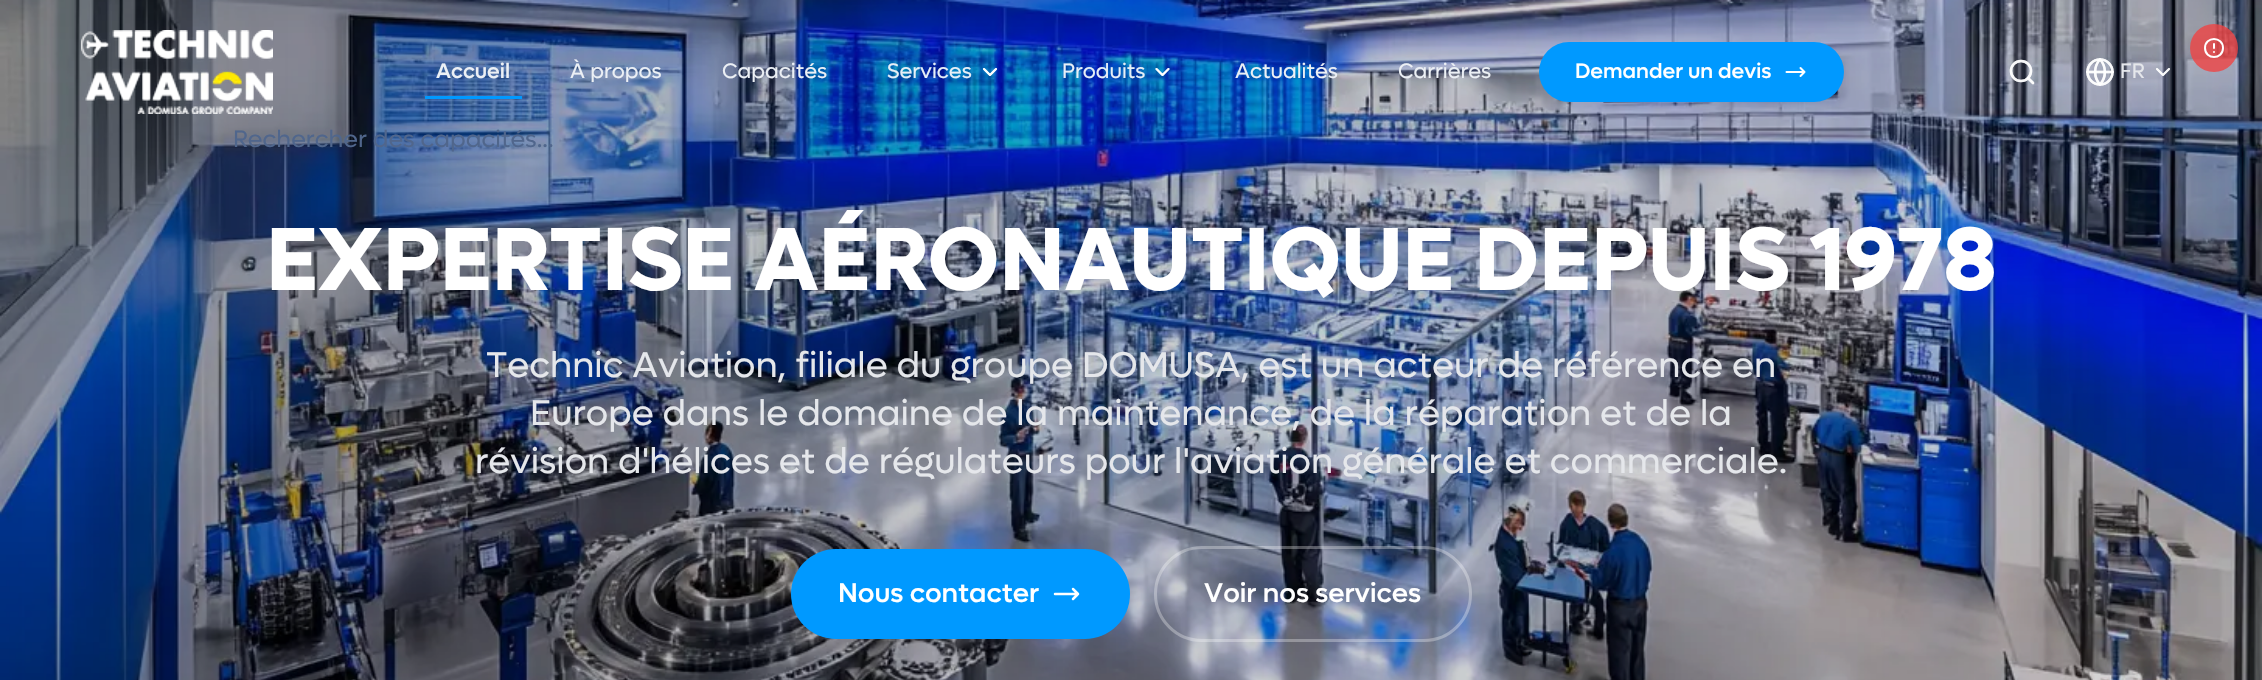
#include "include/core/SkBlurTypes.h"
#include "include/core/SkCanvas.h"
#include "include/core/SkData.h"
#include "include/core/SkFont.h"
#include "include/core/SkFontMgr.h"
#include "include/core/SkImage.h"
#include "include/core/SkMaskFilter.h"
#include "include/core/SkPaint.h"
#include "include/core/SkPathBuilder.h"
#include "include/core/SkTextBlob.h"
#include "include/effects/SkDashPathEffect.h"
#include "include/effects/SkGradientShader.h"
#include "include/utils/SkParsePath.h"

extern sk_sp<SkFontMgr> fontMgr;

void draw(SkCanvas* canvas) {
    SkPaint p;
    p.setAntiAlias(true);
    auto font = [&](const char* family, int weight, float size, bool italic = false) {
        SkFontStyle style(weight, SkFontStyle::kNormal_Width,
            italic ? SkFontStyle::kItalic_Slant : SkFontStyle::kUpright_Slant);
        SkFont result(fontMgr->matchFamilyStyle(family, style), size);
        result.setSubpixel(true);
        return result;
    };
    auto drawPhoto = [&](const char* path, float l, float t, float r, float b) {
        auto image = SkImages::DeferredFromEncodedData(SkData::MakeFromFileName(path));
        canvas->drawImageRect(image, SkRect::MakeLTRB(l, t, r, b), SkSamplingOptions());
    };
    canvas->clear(0xFFFFFFFF);
    drawPhoto("media/3.png", 0, 0, 2262, 680);
    drawPhoto("media/1.png", 81, 30, 273, 114);
    auto font1 = font("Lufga", 500, 21);
    p.setColor(0xFFECF0F5);
    canvas->drawString("Accueil", 436, 78, font1, p);
    p.setColor(0xFF0099FF);
    canvas->drawRect(SkRect::MakeLTRB(425, 96, 522, 99), p);
    auto font2 = font("Lufga", 400, 21);
    p.setColor(0xFFECF0F5);
    canvas->drawString("À propos", 570, 78, font2, p);
    canvas->drawString("Capacités", 722, 78, font2, p);
    p.setColor(0xFFE6EFF7);
    canvas->drawString("Services", 887, 78, font2, p);
    p.setStyle(SkPaint::kStroke_Style);
    p.setStrokeWidth(2);
    p.setStrokeCap(SkPaint::kRound_Cap);
    p.setStrokeJoin(SkPaint::kRound_Join);
    p.setColor(0xE6FFFFFF);
    canvas->drawPath(SkPathBuilder().moveTo(984, 69).lineTo(990, 75).lineTo(996, 69).detach(), p);
    p.setStyle(SkPaint::kFill_Style);
    p.setColor(0xFFE6EFF7);
    canvas->drawString("Produits", 1062, 78, font2, p);
    p.setStyle(SkPaint::kStroke_Style);
    p.setColor(0xE6FFFFFF);
    canvas->drawPath(SkPathBuilder().moveTo(1156.5f, 69).lineTo(1162.5f, 75).lineTo(1168.5f, 69).detach(), p);
    p.setStyle(SkPaint::kFill_Style);
    p.setColor(0xFFECF0F5);
    canvas->drawString("Actualités", 1235, 78, font2, p);
    canvas->drawString("Carrières", 1398, 78, font2, p);
    p.setStyle(SkPaint::kStroke_Style);
    p.setStrokeWidth(2.5f);
    p.setColor(0xCCFFFFFF);
    canvas->drawPath(SkPathBuilder().moveTo(2033, 83).lineTo(2028, 78).detach(), p);
    p.setStrokeCap(SkPaint::kButt_Cap);
    p.setStrokeJoin(SkPaint::kMiter_Join);
    canvas->drawCircle(2021, 71, 10, p);
    canvas->drawCircle(2100, 72, 12.5f, p);
    p.setStrokeCap(SkPaint::kRound_Cap);
    p.setStrokeJoin(SkPaint::kRound_Join);
    canvas->drawPath(SkPathBuilder().moveTo(2100, 59.5f).cubicTo(2093.5f, 66.5f, 2093.5f, 77.5f, 2100, 84.5f).cubicTo(2106.5f, 77.5f, 2106.5f, 66.5f, 2100, 59.5f).detach(), p);
    canvas->drawPath(SkPathBuilder().moveTo(2087.5f, 72).lineTo(2112.5f, 72).detach(), p);
    p.setStyle(SkPaint::kFill_Style);
    p.setColor(0xFFE5E7EB);
    canvas->drawString("FR", 2120, 78, font2, p);
    p.setStyle(SkPaint::kStroke_Style);
    p.setStrokeWidth(2);
    p.setColor(0xCCFFFFFF);
    canvas->drawPath(SkPathBuilder().moveTo(2157, 69).lineTo(2163, 75).lineTo(2169, 69).detach(), p);
    auto font3 = font("Lufga", 400, 24);
    p.setStyle(SkPaint::kFill_Style);
    p.setColor(0xFF50668C);
    canvas->drawString("Rechercher des capacités...", 233, 147, font3, p);
    drawPhoto("media/2.png", 81, 30, 273, 114);
    p.setStyle(SkPaint::kStroke_Style);
    p.setColor(0xE6FFFFFF);
    canvas->drawPath(SkPathBuilder().moveTo(984, 69).lineTo(990, 75).lineTo(996, 69).detach(), p);
    canvas->drawPath(SkPathBuilder().moveTo(1156.5f, 69).lineTo(1162.5f, 75).lineTo(1168.5f, 69).detach(), p);
    p.setStyle(SkPaint::kFill_Style);
    p.setColor(0xFF0099FF);
    canvas->drawRoundRect(SkRect::MakeLTRB(1539, 42, 1844, 102), 30, 30, p);
    p.setColor(0xFFFFFFFF);
    canvas->drawString("Demander un devis", 1575, 78, font1, p);
    p.setStyle(SkPaint::kStroke_Style);
    canvas->drawPath(SkPathBuilder().moveTo(1800.5f, 68).lineTo(1804.5f, 72).moveTo(1804.5f, 72).lineTo(1800.5f, 76).moveTo(1804.5f, 72).lineTo(1786.5f, 72).detach(), p);
    p.setStrokeWidth(2.5f);
    p.setColor(0xCCFFFFFF);
    canvas->drawPath(SkPathBuilder().moveTo(2033, 83).lineTo(2028, 78).detach(), p);
    p.setStrokeCap(SkPaint::kButt_Cap);
    p.setStrokeJoin(SkPaint::kMiter_Join);
    canvas->drawCircle(2021, 71, 10, p);
    canvas->drawCircle(2100, 72, 12.5f, p);
    p.setStrokeCap(SkPaint::kRound_Cap);
    p.setStrokeJoin(SkPaint::kRound_Join);
    canvas->drawPath(SkPathBuilder().moveTo(2100, 59.5f).cubicTo(2093.5f, 66.5f, 2093.5f, 77.5f, 2100, 84.5f).cubicTo(2106.5f, 77.5f, 2106.5f, 66.5f, 2100, 59.5f).detach(), p);
    canvas->drawPath(SkPathBuilder().moveTo(2087.5f, 72).lineTo(2112.5f, 72).detach(), p);
    p.setStrokeWidth(2);
    canvas->drawPath(SkPathBuilder().moveTo(2157, 69).lineTo(2163, 75).lineTo(2169, 69).detach(), p);
    p.setStyle(SkPaint::kFill_Style);
    p.setColor(0xCCEF4444);
    canvas->drawCircle(2214, 48, 24, p);
    p.setStyle(SkPaint::kStroke_Style);
    p.setColor(0xFFFFFFFF);
    canvas->drawPath(SkPathBuilder().moveTo(2214, 44).lineTo(2214, 48).moveTo(2214, 52).lineTo(2214, 52).moveTo(2223, 48).cubicTo(2223, 60, 2205, 60, 2205, 48).cubicTo(2205, 36, 2223, 36, 2223, 48).close().detach(), p);
    auto font4 = font("Lufga", 700, 90);
    p.setStyle(SkPaint::kFill_Style);
    canvas->drawString("EXPERTISE AÉRONAUTIQUE DEPUIS 1978", 266, 290, font4, p);
    auto font5 = font("Lufga", 400, 36);
    p.setColor(0xFFE5E7EB);
    {
        const struct { const char* s; float x, y; } items[] = {
            {"Technic Aviation, filiale du groupe DOMUSA, est un acteur de référence en", 486, 377},
            {"Europe dans le domaine de la maintenance, de la réparation et de la", 530, 425},
            {"révision d'hélices et de régulateurs pour l'aviation générale et commerciale.", 475, 473},
        };
        for (auto [s, x, y] : items) {
            canvas->drawString(s, x, y, font5, p);
        }
    }
    p.setColor(0xFF0099FF);
    canvas->drawRoundRect(SkRect::MakeLTRB(791, 549, 1130, 639), 45, 45, p);
    auto font6 = font("Lufga", 500, 27);
    p.setColor(0xFFFFFFFF);
    canvas->drawString("Nous contacter", 838, 602, font6, p);
    p.setStyle(SkPaint::kStroke_Style);
    p.setStrokeWidth(2.5f);
    canvas->drawPath(SkPathBuilder().moveTo(1073, 589).lineTo(1078, 594).moveTo(1078, 594).lineTo(1073, 599).moveTo(1078, 594).lineTo(1055, 594).detach(), p);
    p.setStrokeWidth(3);
    p.setStrokeCap(SkPaint::kButt_Cap);
    p.setStrokeJoin(SkPaint::kMiter_Join);
    p.setColor(0x4DFFFFFF);
    canvas->drawRoundRect(SkRect::MakeLTRB(1155.5f, 547.5f, 1470.5f, 640.5f), 46.5f, 46.5f, p);
    p.setStyle(SkPaint::kFill_Style);
    p.setColor(0xFFFFFFFF);
    canvas->drawString("Voir nos services", 1204, 602, font6, p);
}
